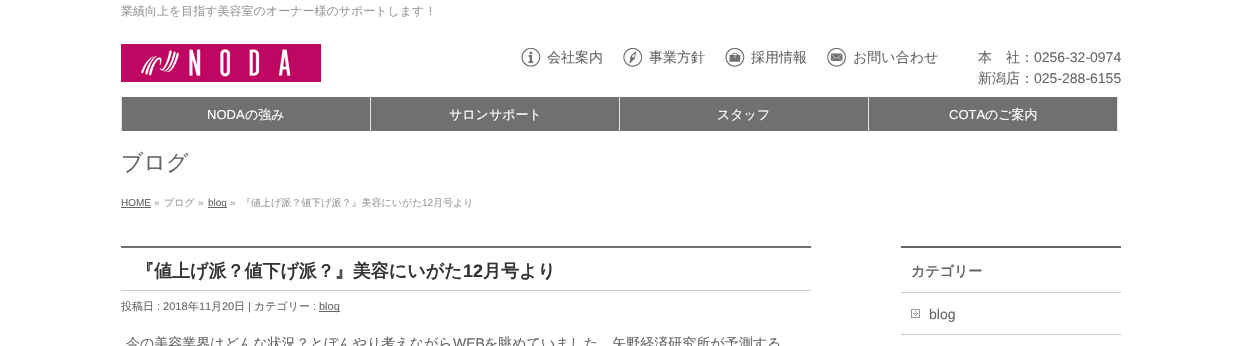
#include "include/core/SkBlurTypes.h"
#include "include/core/SkCanvas.h"
#include "include/core/SkData.h"
#include "include/core/SkFont.h"
#include "include/core/SkFontMgr.h"
#include "include/core/SkImage.h"
#include "include/core/SkMaskFilter.h"
#include "include/core/SkPaint.h"
#include "include/core/SkPathBuilder.h"
#include "include/core/SkTextBlob.h"
#include "include/effects/SkDashPathEffect.h"
#include "include/effects/SkGradientShader.h"
#include "include/utils/SkParsePath.h"

extern sk_sp<SkFontMgr> fontMgr;

void draw(SkCanvas* canvas) {
    SkPaint p;
    p.setAntiAlias(true);
    auto font = [&](const char* family, int weight, float size, bool italic = false) {
        SkFontStyle style(weight, SkFontStyle::kNormal_Width,
            italic ? SkFontStyle::kItalic_Slant : SkFontStyle::kUpright_Slant);
        SkFont result(fontMgr->matchFamilyStyle(family, style), size);
        result.setSubpixel(true);
        return result;
    };
    auto drawPhoto = [&](const char* path, float l, float t, float r, float b) {
        auto image = SkImages::DeferredFromEncodedData(SkData::MakeFromFileName(path));
        canvas->drawImageRect(image, SkRect::MakeLTRB(l, t, r, b), SkSamplingOptions());
    };
    canvas->clear(0xFFFFFFFF);
    auto font1 = font("WenQuanYi Zen Hei", 500, 12);
    p.setColor(0xFF999999);
    canvas->drawString("業績向上を目指す美容室のオーナー様のサポートします！", 121, 15, font1, p);
    drawPhoto("media/1.png", 121, 44, 321, 82);
    drawPhoto("media/2.png", 521, 48, 541, 67);
    auto font2 = font("WenQuanYi Zen Hei", 500, 14);
    p.setColor(0xFF666666);
    canvas->drawString("会社案内", 547, 62, font2, p);
    drawPhoto("media/3.png", 623, 48, 643, 67);
    canvas->drawString("事業方針", 649, 62, font2, p);
    drawPhoto("media/4.png", 725, 48, 745, 67);
    canvas->drawString("採用情報", 751, 62, font2, p);
    drawPhoto("media/5.png", 827, 48, 846, 67);
    canvas->drawString("お問い合わせ", 853, 62, font2, p);
    canvas->drawString("本　社：", 978, 62, font2, p);
    auto font3 = font("Liberation Sans", 400, 14);
    canvas->drawString("0256-32-0974", 1034, 62, font3, p);
    canvas->drawString("新潟店：", 978, 83, font2, p);
    canvas->drawString("025-288-6155", 1034, 83, font3, p);
    {
        const struct { float l, t, r, b; SkColor color; } items[] = {
            {121, 97, 122, 131, 0xFFE5E5E5},
            {122, 97, 370, 131, 0xFF717071},
            {370, 97, 371, 131, 0xFFE5E5E5},
        };
        for (auto [l, t, r, b, color] : items) {
            p.setColor(color);
            canvas->drawRect(SkRect::MakeLTRB(l, t, r, b), p);
        }
    }
    auto font4 = font("Liberation Sans", 400, 13);
    p.setColor(0xFFFFFFFF);
    canvas->drawString("NODA", 207, 119, font4, p);
    auto font5 = font("WenQuanYi Zen Hei", 500, 13);
    canvas->drawString("の強み", 245, 119, font5, p);
    p.setColor(0xFF717071);
    canvas->drawRect(SkRect::MakeLTRB(371, 97, 619, 131), p);
    p.setColor(0xFFE5E5E5);
    canvas->drawRect(SkRect::MakeLTRB(619, 97, 620, 131), p);
    p.setColor(0xFFFFFFFF);
    canvas->drawString("サロンサポート", 449, 119, font5, p);
    p.setColor(0xFF717071);
    canvas->drawRect(SkRect::MakeLTRB(620, 97, 868, 131), p);
    p.setColor(0xFFE5E5E5);
    canvas->drawRect(SkRect::MakeLTRB(868, 97, 869, 131), p);
    p.setColor(0xFFFFFFFF);
    canvas->drawString("スタッフ", 717, 119, font5, p);
    p.setColor(0xFF717071);
    canvas->drawRect(SkRect::MakeLTRB(869, 97, 1117, 131), p);
    p.setColor(0xFFE5E5E5);
    canvas->drawRect(SkRect::MakeLTRB(1117, 97, 1118, 131), p);
    p.setColor(0xFFFFFFFF);
    canvas->drawString("COTA", 949, 119, font4, p);
    canvas->drawString("のご案内", 985, 119, font5, p);
    auto font6 = font("WenQuanYi Zen Hei", 500, 22);
    p.setColor(0xFF666666);
    canvas->drawString("ブログ", 121, 170, font6, p);
    auto font7 = font("Liberation Sans", 400, 10);
    canvas->drawString("HOME", 121, 206, font7, p);
    canvas->drawRect(SkRect::MakeLTRB(121, 207, 151, 208), p);
    p.setColor(0xFF999999);
    canvas->drawString("»", 154, 206, font7, p);
    auto font8 = font("WenQuanYi Zen Hei", 500, 10);
    canvas->drawString("ブログ", 164, 206, font8, p);
    canvas->drawString("»", 198, 206, font7, p);
    p.setColor(0xFF666666);
    canvas->drawRect(SkRect::MakeLTRB(208, 207, 227, 208), p);
    canvas->drawString("blog", 208, 206, font7, p);
    p.setColor(0xFF999999);
    canvas->drawString("»", 230, 206, font7, p);
    canvas->drawString("『値上げ派？値下げ派？』美容にいがた", 241, 206, font8, p);
    canvas->drawString("12", 422, 206, font7, p);
    canvas->drawString("月号より", 433, 206, font8, p);
    p.setColor(0xFF717071);
    canvas->drawRect(SkRect::MakeLTRB(121, 246, 811, 248), p);
    p.setColor(0xFFCCCCCC);
    canvas->drawRect(SkRect::MakeLTRB(121, 290, 811, 291), p);
    auto font9 = font("WenQuanYi Zen Hei", 700, 18);
    p.setColor(0xFF333333);
    canvas->drawString("『値上げ派？値下げ派？』美容にいがた", 136, 277, font9, p);
    auto font10 = font("Liberation Sans", 700, 18);
    canvas->drawString("12", 463, 277, font10, p);
    canvas->drawString("月号より", 483, 277, font9, p);
    auto font11 = font("WenQuanYi Zen Hei", 500, 11);
    p.setColor(0xFF666666);
    canvas->drawString("投稿日", 121, 310, font11, p);
    auto font12 = font("Liberation Sans", 400, 11);
    canvas->drawString(": 2018", 157, 310, font12, p);
    canvas->drawString("年", 188, 310, font11, p);
    canvas->drawString("11", 199, 310, font12, p);
    canvas->drawString("月", 211, 310, font11, p);
    canvas->drawString("20", 222, 310, font12, p);
    canvas->drawString("日", 234, 310, font11, p);
    canvas->drawString("|", 248, 310, font12, p);
    canvas->drawString("カテゴリー", 254, 310, font11, p);
    canvas->drawString(":", 313, 310, font12, p);
    canvas->drawRect(SkRect::MakeLTRB(319, 311, 340, 312), p);
    canvas->drawString("blog", 319, 310, font12, p);
    canvas->drawString("今の美容業界はどんな状況？とぼんやり考えながら", 126, 348, font2, p);
    canvas->drawString("WEB", 453, 348, font3, p);
    canvas->drawString("を眺めていました。矢野経済研究所が予測する", 484, 348, font2, p);
    canvas->drawRect(SkRect::MakeLTRB(901, 246, 1121, 248), p);
    p.setColor(0xFFCCCCCC);
    canvas->drawRect(SkRect::MakeLTRB(901, 292, 1121, 293), p);
    auto font13 = font("WenQuanYi Zen Hei", 700, 14);
    p.setColor(0xFF666666);
    canvas->drawString("カテゴリー", 911, 276, font13, p);
    p.setColor(0xFFCCCCCC);
    canvas->drawRect(SkRect::MakeLTRB(901, 334, 1121, 335), p);
    drawPhoto("media/6.png", 911, 309, 920, 318);
    p.setColor(0xFF666666);
    canvas->drawString("blog", 929, 319, font3, p);
}
